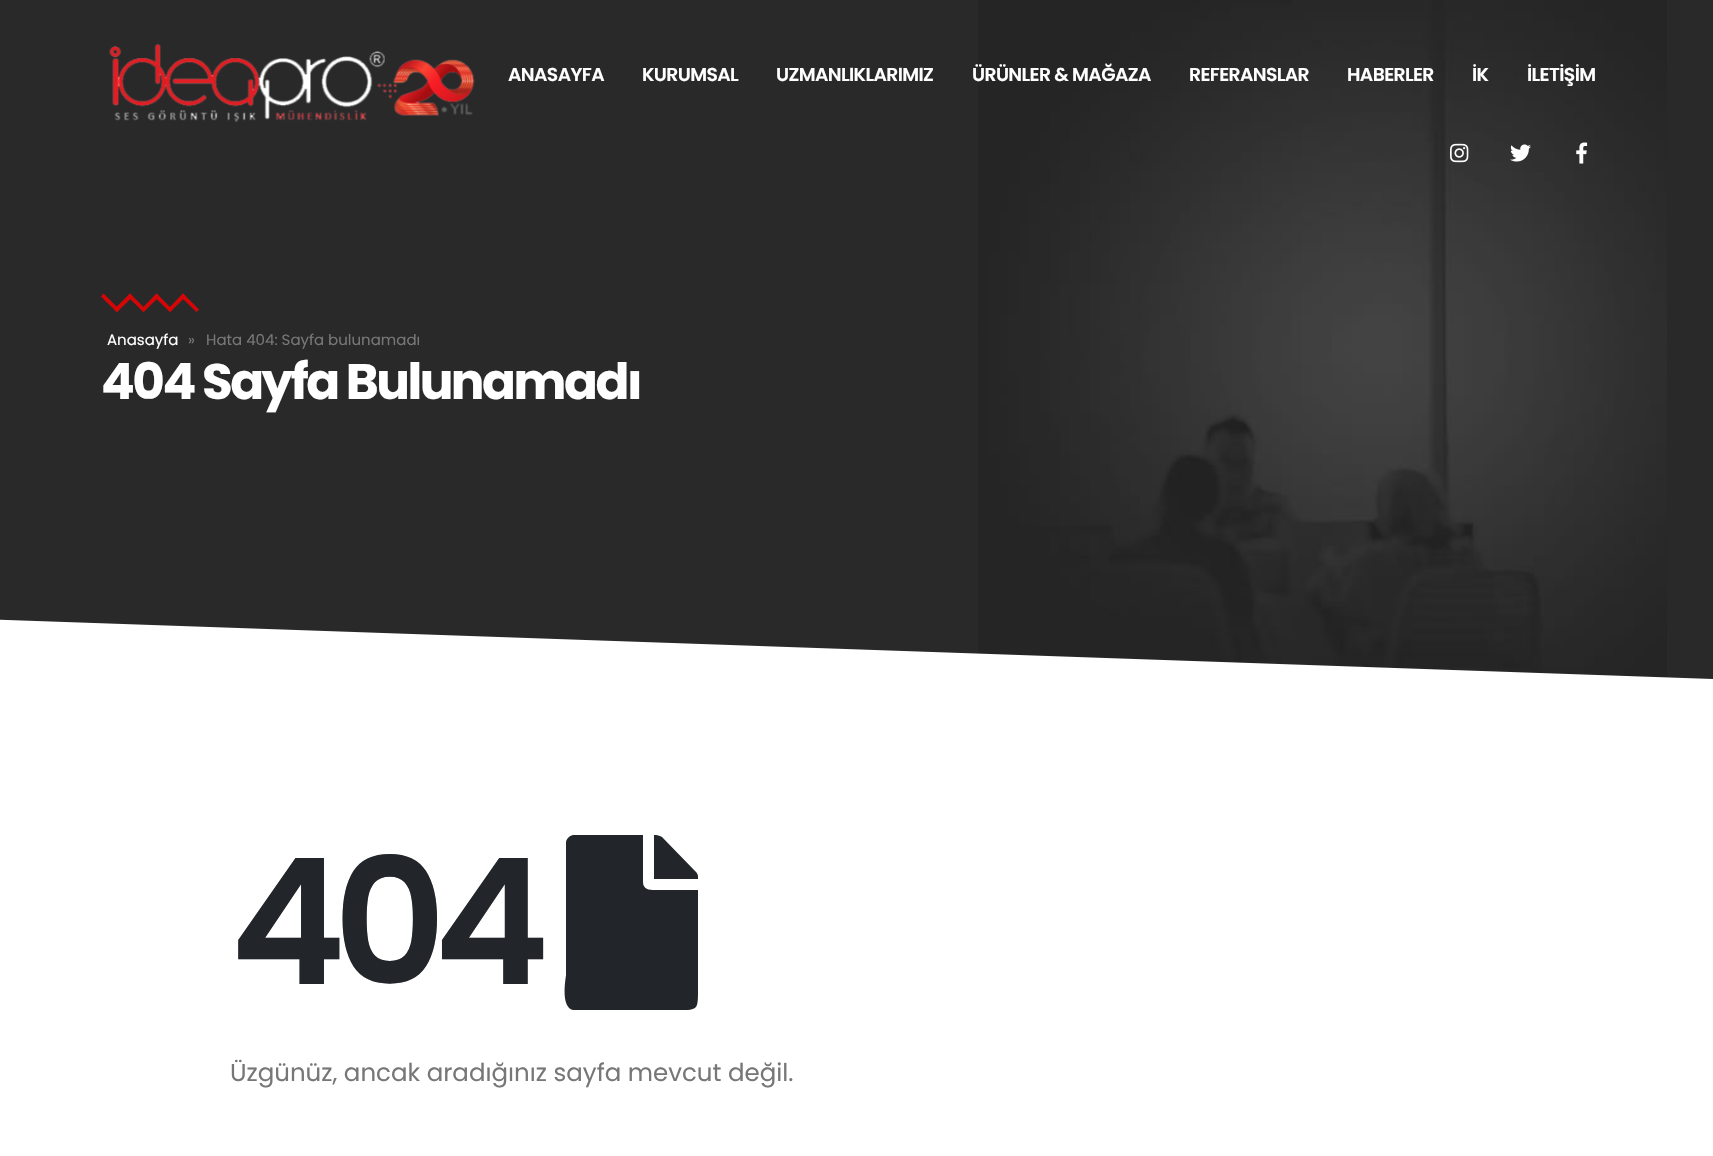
#include "include/core/SkBlurTypes.h"
#include "include/core/SkCanvas.h"
#include "include/core/SkData.h"
#include "include/core/SkFont.h"
#include "include/core/SkFontMgr.h"
#include "include/core/SkImage.h"
#include "include/core/SkMaskFilter.h"
#include "include/core/SkPaint.h"
#include "include/core/SkPathBuilder.h"
#include "include/core/SkTextBlob.h"
#include "include/effects/SkDashPathEffect.h"
#include "include/effects/SkGradientShader.h"
#include "include/utils/SkParsePath.h"

extern sk_sp<SkFontMgr> fontMgr;

void draw(SkCanvas* canvas) {
    SkPaint p;
    p.setAntiAlias(true);
    auto font = [&](const char* family, int weight, float size, bool italic = false) {
        SkFontStyle style(weight, SkFontStyle::kNormal_Width,
            italic ? SkFontStyle::kItalic_Slant : SkFontStyle::kUpright_Slant);
        SkFont result(fontMgr->matchFamilyStyle(family, style), size);
        result.setSubpixel(true);
        return result;
    };
    auto drawTracked = [&](const char* s, float x, float y, const SkFont& font, const SkPaint& ink, float letter, float word) {
        std::vector<SkGlyphID> glyphs(font.countText(s, strlen(s), SkTextEncoding::kUTF8));
        std::vector<float> xs(glyphs.size());
        font.textToGlyphs(s, strlen(s), SkTextEncoding::kUTF8, glyphs);
        font.getXPos(glyphs, xs, x);
        float extra = 0;
        for (size_t i = 0; i < glyphs.size(); i++) {
            xs[i] += extra;
            extra += letter + word * (glyphs[i] == font.unicharToGlyph(' '));
        }
        canvas->drawTextBlob(SkTextBlob::MakeFromPosHGlyphs(glyphs, xs, y, font), 0, 0, ink);
    };
    auto drawPhoto = [&](const char* path, float l, float t, float r, float b) {
        auto image = SkImages::DeferredFromEncodedData(SkData::MakeFromFileName(path));
        canvas->drawImageRect(image, SkRect::MakeLTRB(l, t, r, b), SkSamplingOptions());
    };
    canvas->clear(0xFFFFFFFF);
    p.setColor(0xFF292929);
    canvas->drawRect(SkRect::MakeLTRB(0, 0, 1713, 680), p);
    drawPhoto("media/1.png", 109, 44, 475, 122);
    auto font1 = font("Poppins", 600, 18.75f);
    p.setColor(0xFFFFFFFF);
    {
        const struct { const char* s; float x, y; } items[] = {
            {"ANASAYFA", 508, 81},
            {"KURUMSAL", 642, 81},
            {"UZMANLIKLARIMIZ", 776, 81},
        };
        for (auto [s, x, y] : items) {
            drawTracked(s, x, y, font1, p, -0.6f, 0);
        }
    }
    drawPhoto("media/5.png", 978, 0, 1667, 678);
    {
        const struct { const char* s; float x, y; } items[] = {
            {"ÜRÜNLER & MAĞAZA", 972, 81},
            {"REFERANSLAR", 1189, 81},
            {"HABERLER", 1347, 81},
            {"İK", 1472, 81},
            {"İLETİŞİM", 1527, 81},
        };
        for (auto [s, x, y] : items) {
            drawTracked(s, x, y, font1, p, -0.6f, 0);
        }
    }
    drawPhoto("media/2.png", 1450, 143, 1469, 163);
    drawPhoto("media/3.png", 1510, 144, 1531, 162);
    drawPhoto("media/4.png", 1576, 142, 1588, 164);
    p.setColor(0xFFD60606);
    canvas->drawPath(SkPathBuilder().moveTo(180.5f, 296.5f).lineTo(183, 293.5f).lineTo(199, 309.5f).lineTo(196.5f, 312).close().detach(), p);
    canvas->drawPath(SkPathBuilder().moveTo(167.5f, 309.5f).lineTo(183, 293.5f).lineTo(186, 296.5f).lineTo(170, 312).close().detach(), p);
    canvas->drawPath(SkPathBuilder().moveTo(154, 296.5f).lineTo(156.5f, 293.5f).lineTo(172.5f, 309.5f).lineTo(170, 312).close().detach(), p);
    canvas->drawPath(SkPathBuilder().moveTo(141, 309.5f).lineTo(156.5f, 293.5f).lineTo(159.5f, 296.5f).lineTo(143.5f, 312).close().detach(), p);
    canvas->drawPath(SkPathBuilder().moveTo(127.5f, 296.5f).lineTo(130, 293.5f).lineTo(146, 309.5f).lineTo(143.5f, 312).close().detach(), p);
    canvas->drawPath(SkPathBuilder().moveTo(114, 309.5f).lineTo(130, 293.5f).lineTo(133, 296.5f).lineTo(117, 312).close().detach(), p);
    canvas->drawPath(SkPathBuilder().moveTo(106, 301.5f).lineTo(101, 296.5f).lineTo(103.5f, 293.5f).lineTo(119.5f, 309.5f).lineTo(117, 312).close().detach(), p);
    auto font2 = font("Poppins", 400, 15);
    p.setColor(0xFFFFFFFF);
    canvas->drawString("Anasayfa", 107, 345, font2, p);
    p.setColor(0xFF777777);
    canvas->drawString("»", 188, 345, font2, p);
    canvas->drawString("Hata 404: Sayfa bulunamadı", 206, 345, font2, p);
    auto font3 = font("Poppins", 700, 50);
    p.setColor(0xFFFFFFFF);
    drawTracked("404 Sayfa Bulunamadı", 101, 399, font3, p, -2.5f, 0);
    canvas->save();
    canvas->clipRect(SkRect::MakeLTRB(0, 0, 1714, 718));
    canvas->drawPath(SkPathBuilder().moveTo(-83, 617).lineTo(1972, 688).lineTo(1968, 813).lineTo(-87, 742).close().detach(), p);
    canvas->restore();
    auto font4 = font("Poppins", 600, 175);
    p.setColor(0xFF222529);
    drawTracked("404", 230, 984, font4, p, -12.5f, 0);
    canvas->drawPath(SkPathBuilder().moveTo(643, 882).lineTo(643, 835).lineTo(573, 835).cubicTo(569, 836, 566, 839, 566, 843).lineTo(566, 975).cubicTo(566, 977, 560, 1007, 573, 1010).lineTo(670, 1010).cubicTo(700, 1010, 698, 1013, 698, 983).lineTo(698, 890).lineTo(659, 890).cubicTo(652, 890, 643, 891, 643, 882).close().moveTo(698, 877).lineTo(698, 879).lineTo(654, 879).lineTo(654, 835).lineTo(656, 835).cubicTo(658, 835, 660, 836, 662, 837).lineTo(695, 871).cubicTo(697, 873, 698, 874, 698, 877).close().detach(), p);
    auto font5 = font("Poppins", 400, 24.5f);
    p.setColor(0xFF777777);
    canvas->drawString("Üzgünüz, ancak aradığınız sayfa mevcut değil.", 230, 1081, font5, p);
}
